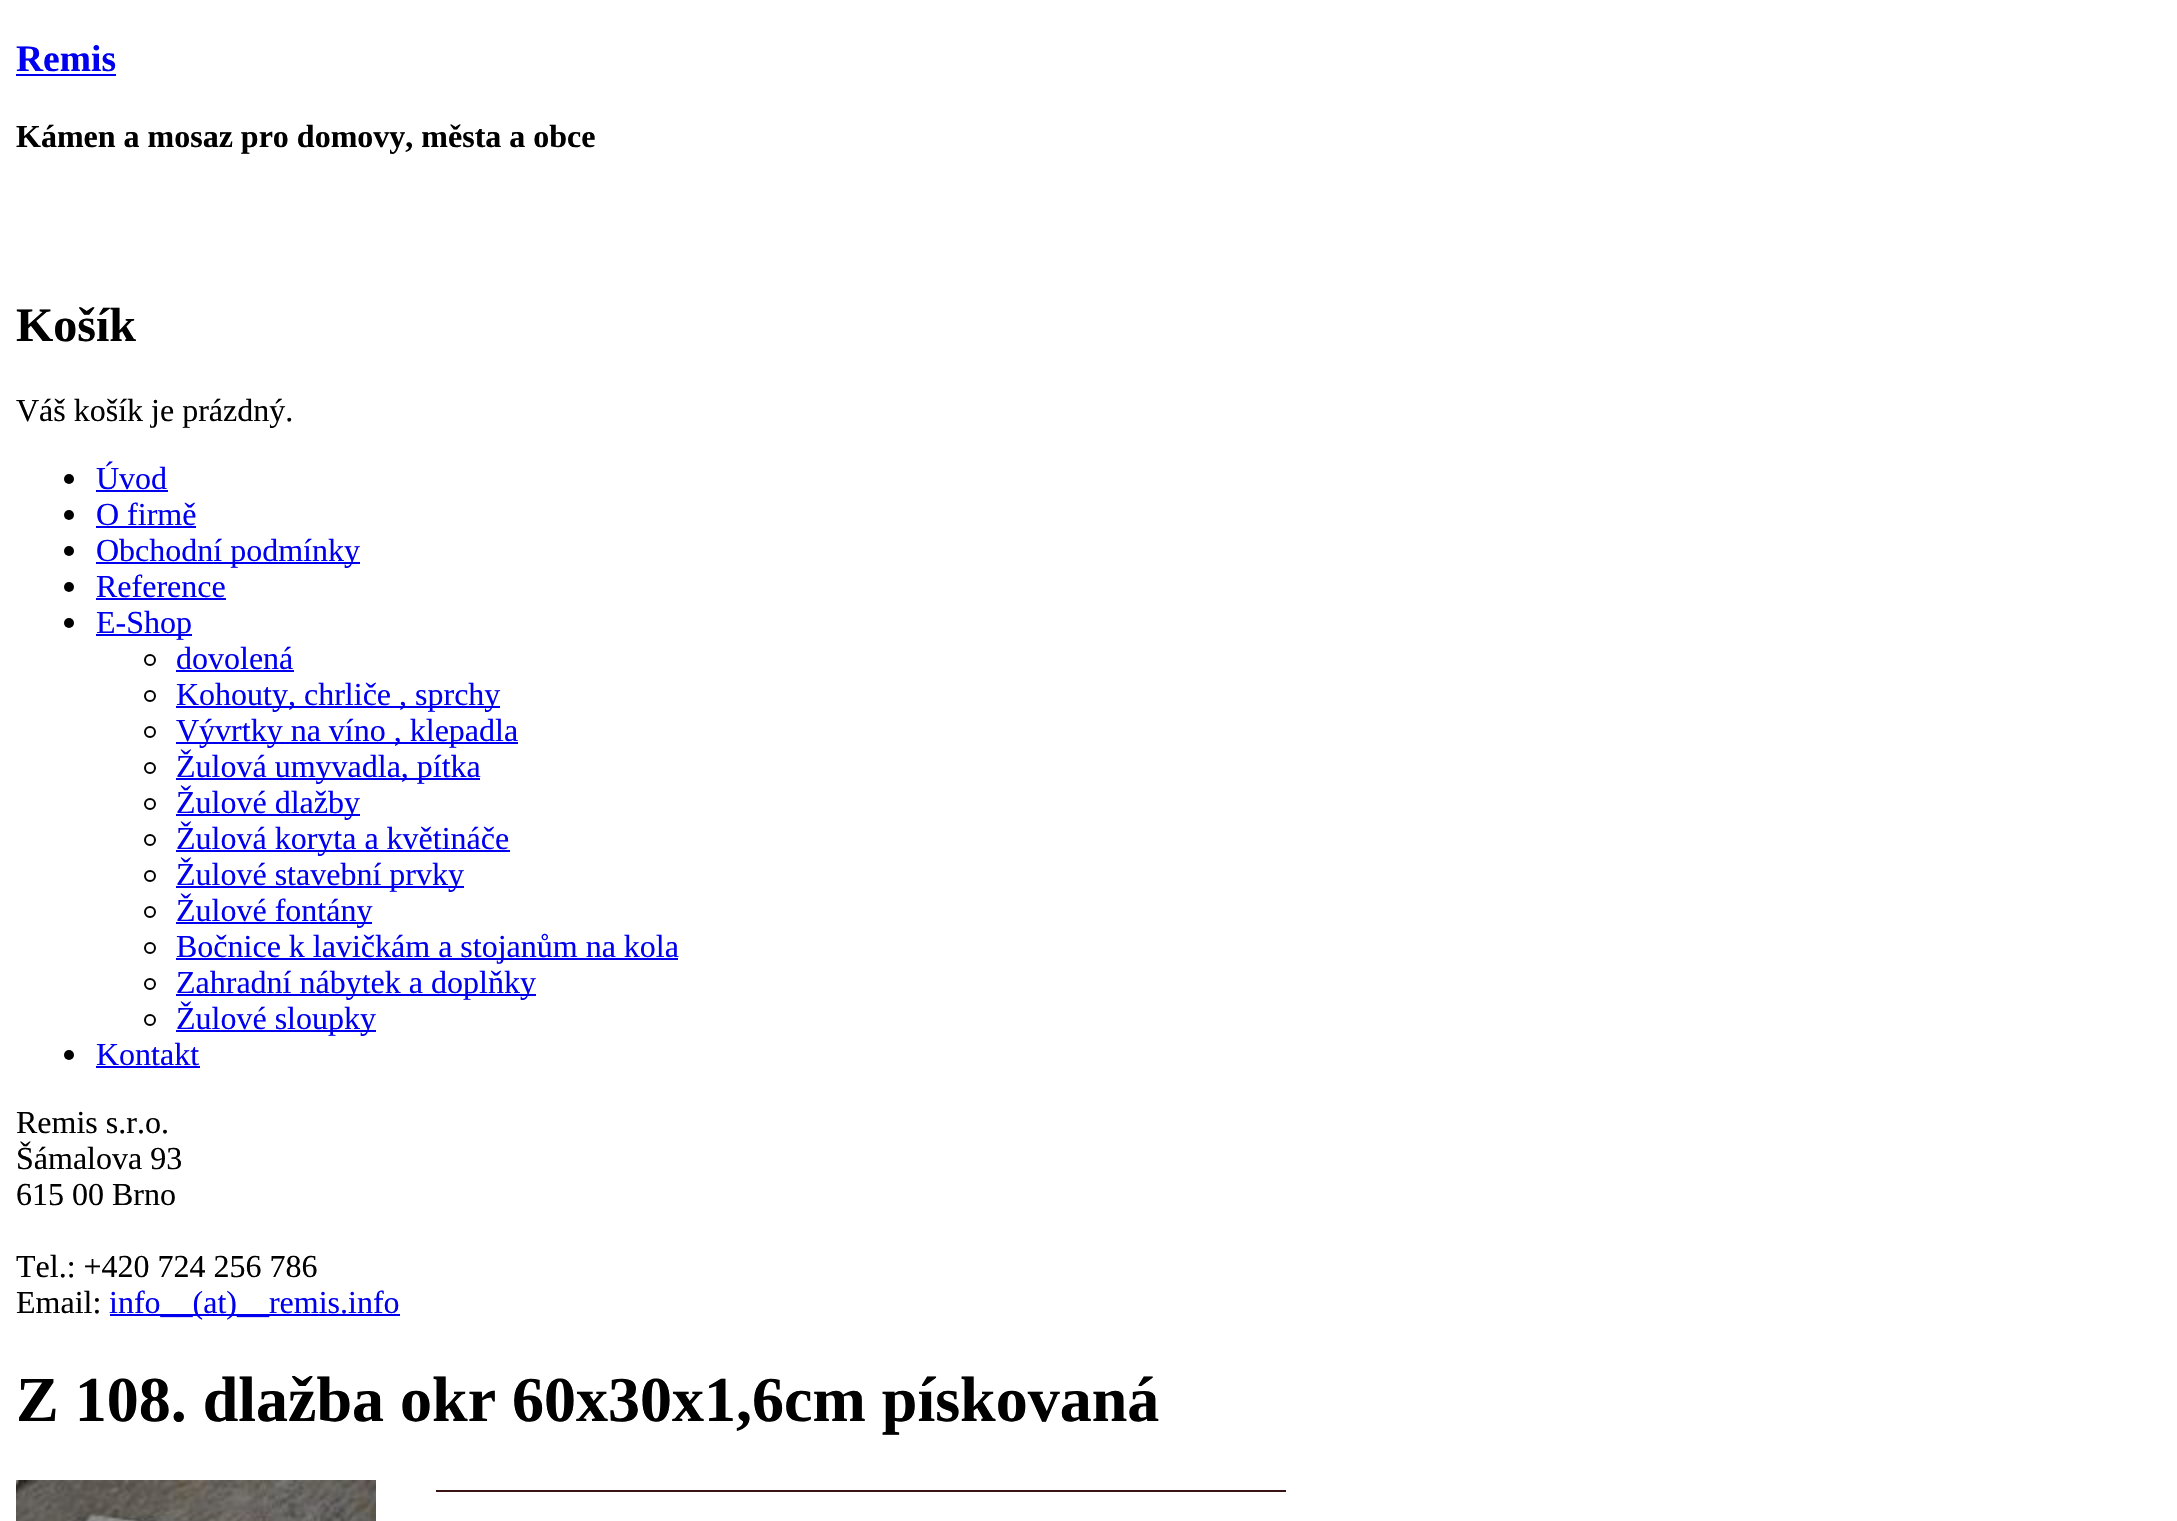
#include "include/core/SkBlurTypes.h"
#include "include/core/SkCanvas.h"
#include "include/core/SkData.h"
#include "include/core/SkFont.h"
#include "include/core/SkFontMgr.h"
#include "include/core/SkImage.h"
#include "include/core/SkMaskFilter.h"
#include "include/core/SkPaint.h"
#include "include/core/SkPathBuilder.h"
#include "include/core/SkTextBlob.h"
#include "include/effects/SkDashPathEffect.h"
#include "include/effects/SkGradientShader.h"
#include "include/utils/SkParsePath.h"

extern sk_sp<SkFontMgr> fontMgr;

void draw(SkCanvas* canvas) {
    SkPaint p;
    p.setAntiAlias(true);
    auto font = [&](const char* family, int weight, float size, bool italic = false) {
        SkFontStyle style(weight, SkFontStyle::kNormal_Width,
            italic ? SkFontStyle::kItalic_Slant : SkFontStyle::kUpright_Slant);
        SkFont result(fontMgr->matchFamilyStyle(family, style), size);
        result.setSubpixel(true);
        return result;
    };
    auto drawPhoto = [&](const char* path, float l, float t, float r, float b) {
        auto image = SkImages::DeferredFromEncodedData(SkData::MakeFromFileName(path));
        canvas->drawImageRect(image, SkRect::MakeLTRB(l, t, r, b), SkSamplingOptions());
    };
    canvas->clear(0xFFFFFFFF);
    auto font1 = font("Liberation Serif", 700, 37.5f);
    p.setColor(0xFF0000EE);
    canvas->drawString("Remis", 16, 71, font1, p);
    canvas->drawRect(SkRect::MakeLTRB(16, 74, 116, 76), p);
    auto font2 = font("Liberation Serif", 700, 32);
    p.setColor(0xFF000000);
    canvas->drawString("Kámen a mosaz pro domovy, města a obce", 16, 147, font2, p);
    auto font3 = font("Liberation Serif", 700, 48);
    canvas->drawString("Košík", 16, 341, font3, p);
    auto font4 = font("Liberation Serif", 400, 32);
    canvas->drawString("Váš košík je prázdný.", 16, 421, font4, p);
    canvas->drawCircle(69, 479, 5, p);
    p.setColor(0xFF0000EE);
    canvas->drawString("Úvod", 96, 489, font4, p);
    canvas->drawRect(SkRect::MakeLTRB(96, 490, 168, 492), p);
    p.setColor(0xFF000000);
    canvas->drawCircle(69, 515, 5, p);
    p.setColor(0xFF0000EE);
    canvas->drawString("O firmě", 96, 525, font4, p);
    canvas->drawRect(SkRect::MakeLTRB(96, 526, 196, 528), p);
    p.setColor(0xFF000000);
    canvas->drawCircle(69, 551, 5, p);
    p.setColor(0xFF0000EE);
    canvas->drawRect(SkRect::MakeLTRB(96, 562, 360, 564), p);
    canvas->drawString("Obchodní podmínky", 96, 561, font4, p);
    p.setColor(0xFF000000);
    canvas->drawCircle(69, 587, 5, p);
    p.setColor(0xFF0000EE);
    canvas->drawString("Reference", 96, 597, font4, p);
    canvas->drawRect(SkRect::MakeLTRB(96, 598, 226, 600), p);
    p.setColor(0xFF000000);
    canvas->drawCircle(69, 623, 5, p);
    p.setColor(0xFF0000EE);
    canvas->drawRect(SkRect::MakeLTRB(96, 634, 192, 636), p);
    canvas->drawString("E-Shop", 96, 633, font4, p);
    p.setStyle(SkPaint::kStroke_Style);
    p.setStrokeWidth(2);
    p.setColor(0xFF000000);
    canvas->drawCircle(150, 660, 5, p);
    p.setStyle(SkPaint::kFill_Style);
    p.setColor(0xFF0000EE);
    canvas->drawString("dovolená", 176, 669, font4, p);
    canvas->drawRect(SkRect::MakeLTRB(176, 670, 294, 672), p);
    p.setStyle(SkPaint::kStroke_Style);
    p.setColor(0xFF000000);
    canvas->drawCircle(150, 696, 5, p);
    p.setStyle(SkPaint::kFill_Style);
    p.setColor(0xFF0000EE);
    canvas->drawRect(SkRect::MakeLTRB(176, 706, 500, 708), p);
    canvas->drawString("Kohouty, chrliče , sprchy", 176, 705, font4, p);
    p.setStyle(SkPaint::kStroke_Style);
    p.setColor(0xFF000000);
    canvas->drawCircle(150, 732, 5, p);
    p.setStyle(SkPaint::kFill_Style);
    p.setColor(0xFF0000EE);
    canvas->drawRect(SkRect::MakeLTRB(176, 742, 518, 744), p);
    canvas->drawString("Vývrtky na víno , klepadla", 176, 741, font4, p);
    p.setStyle(SkPaint::kStroke_Style);
    p.setColor(0xFF000000);
    canvas->drawCircle(150, 768, 5, p);
    p.setStyle(SkPaint::kFill_Style);
    p.setColor(0xFF0000EE);
    canvas->drawRect(SkRect::MakeLTRB(176, 778, 480, 780), p);
    canvas->drawString("Žulová umyvadla, pítka", 176, 777, font4, p);
    p.setStyle(SkPaint::kStroke_Style);
    p.setColor(0xFF000000);
    canvas->drawCircle(150, 804, 5, p);
    p.setStyle(SkPaint::kFill_Style);
    p.setColor(0xFF0000EE);
    canvas->drawRect(SkRect::MakeLTRB(176, 814, 360, 816), p);
    canvas->drawString("Žulové dlažby", 176, 813, font4, p);
    p.setStyle(SkPaint::kStroke_Style);
    p.setColor(0xFF000000);
    canvas->drawCircle(150, 840, 5, p);
    p.setStyle(SkPaint::kFill_Style);
    p.setColor(0xFF0000EE);
    canvas->drawRect(SkRect::MakeLTRB(176, 850, 510, 852), p);
    canvas->drawString("Žulová koryta a květináče", 176, 849, font4, p);
    p.setStyle(SkPaint::kStroke_Style);
    p.setColor(0xFF000000);
    canvas->drawCircle(150, 876, 5, p);
    p.setStyle(SkPaint::kFill_Style);
    p.setColor(0xFF0000EE);
    canvas->drawRect(SkRect::MakeLTRB(176, 886, 464, 888), p);
    canvas->drawString("Žulové stavební prvky", 176, 885, font4, p);
    p.setStyle(SkPaint::kStroke_Style);
    p.setColor(0xFF000000);
    canvas->drawCircle(150, 912, 5, p);
    p.setStyle(SkPaint::kFill_Style);
    p.setColor(0xFF0000EE);
    canvas->drawRect(SkRect::MakeLTRB(176, 922, 372, 924), p);
    canvas->drawString("Žulové fontány", 176, 921, font4, p);
    p.setStyle(SkPaint::kStroke_Style);
    p.setColor(0xFF000000);
    canvas->drawCircle(150, 948, 5, p);
    p.setStyle(SkPaint::kFill_Style);
    p.setColor(0xFF0000EE);
    canvas->drawRect(SkRect::MakeLTRB(176, 958, 678, 960), p);
    canvas->drawString("Bočnice k lavičkám a stojanům na kola", 176, 957, font4, p);
    p.setStyle(SkPaint::kStroke_Style);
    p.setColor(0xFF000000);
    canvas->drawCircle(150, 984, 5, p);
    p.setStyle(SkPaint::kFill_Style);
    p.setColor(0xFF0000EE);
    canvas->drawRect(SkRect::MakeLTRB(176, 994, 536, 996), p);
    canvas->drawString("Zahradní nábytek a doplňky", 176, 993, font4, p);
    p.setStyle(SkPaint::kStroke_Style);
    p.setColor(0xFF000000);
    canvas->drawCircle(150, 1020, 5, p);
    p.setStyle(SkPaint::kFill_Style);
    p.setColor(0xFF0000EE);
    canvas->drawRect(SkRect::MakeLTRB(176, 1030, 376, 1032), p);
    canvas->drawString("Žulové sloupky", 176, 1029, font4, p);
    p.setColor(0xFF000000);
    canvas->drawCircle(69, 1055, 5, p);
    p.setColor(0xFF0000EE);
    canvas->drawString("Kontakt", 96, 1065, font4, p);
    canvas->drawRect(SkRect::MakeLTRB(96, 1066, 200, 1068), p);
    p.setColor(0xFF000000);
    {
        const struct { const char* s; float x, y; } items[] = {
            {"Remis s.r.o.", 16, 1133},
            {"Šámalova 93", 16, 1169},
            {"615 00 Brno", 16, 1205},
            {"Tel.: +420 724 256 786", 16, 1277},
            {"Email:", 16, 1313},
        };
        for (auto [s, x, y] : items) {
            canvas->drawString(s, x, y, font4, p);
        }
    }
    p.setColor(0xFF0000EE);
    canvas->drawRect(SkRect::MakeLTRB(110, 1314, 400, 1316), p);
    canvas->drawString("info__(at)__remis.info", 109, 1313, font4, p);
    auto font5 = font("Liberation Serif", 700, 64);
    p.setColor(0xFF000000);
    canvas->drawString("Z 108. dlažba okr 60x30x1,6cm pískovaná", 16, 1421, font5, p);
    drawPhoto("media/1.png", 16, 1480, 376, 1521);
    p.setColor(0xFF391313);
    canvas->drawRect(SkRect::MakeLTRB(436, 1490, 1286, 1492), p);
}
